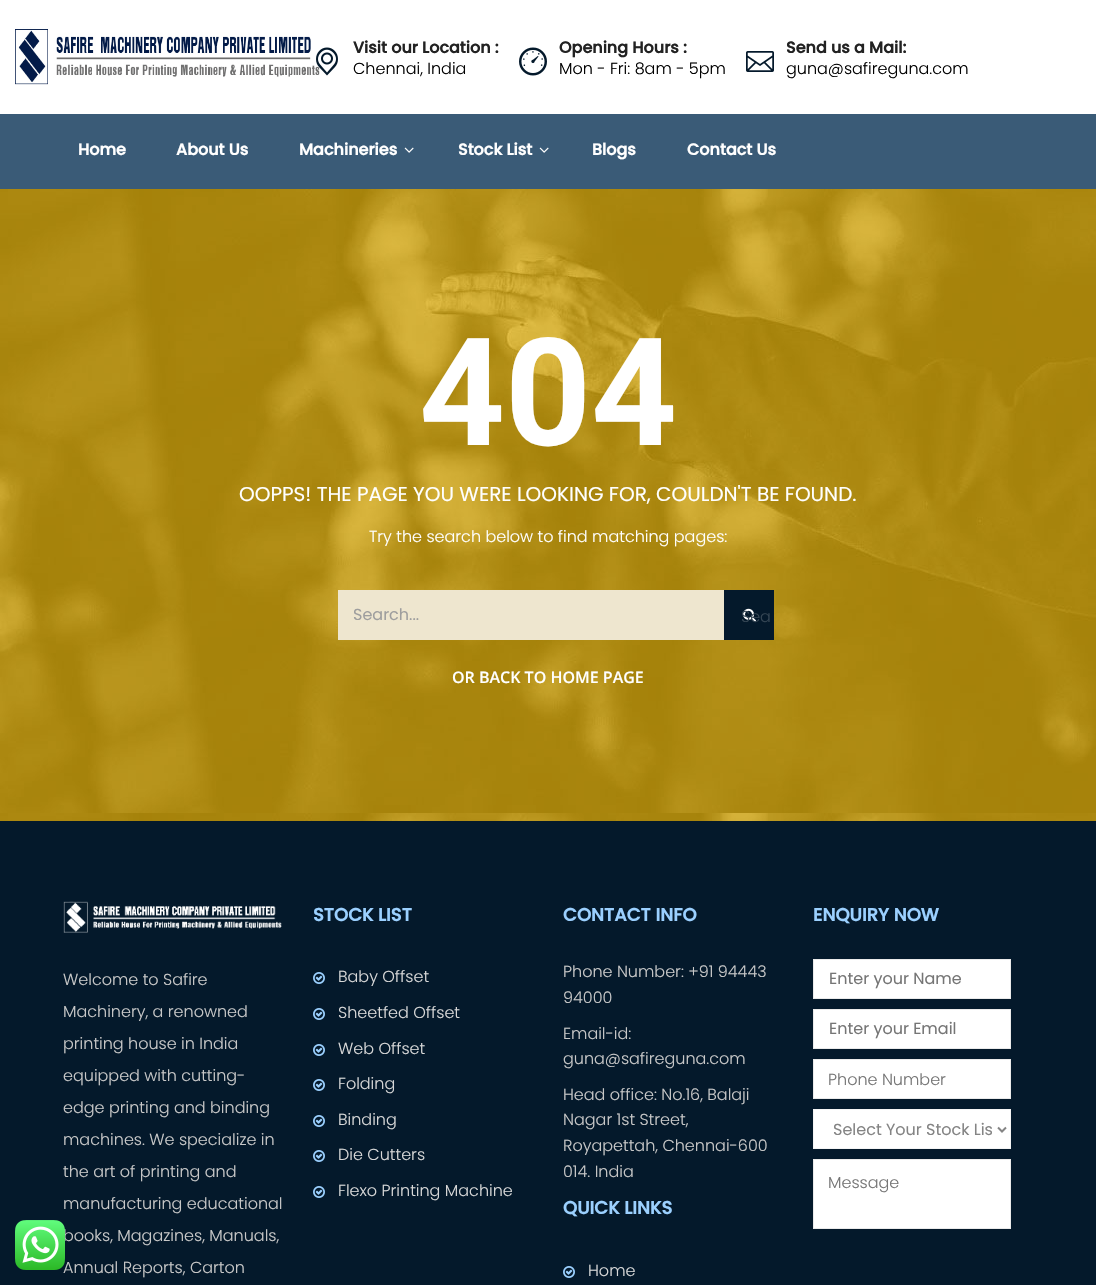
#include "include/core/SkBlurTypes.h"
#include "include/core/SkCanvas.h"
#include "include/core/SkData.h"
#include "include/core/SkFont.h"
#include "include/core/SkFontMgr.h"
#include "include/core/SkImage.h"
#include "include/core/SkMaskFilter.h"
#include "include/core/SkPaint.h"
#include "include/core/SkPathBuilder.h"
#include "include/core/SkTextBlob.h"
#include "include/effects/SkDashPathEffect.h"
#include "include/effects/SkGradientShader.h"
#include "include/utils/SkParsePath.h"

extern sk_sp<SkFontMgr> fontMgr;

void draw(SkCanvas* canvas) {
    SkPaint p;
    p.setAntiAlias(true);
    auto font = [&](const char* family, int weight, float size, bool italic = false) {
        SkFontStyle style(weight, SkFontStyle::kNormal_Width,
            italic ? SkFontStyle::kItalic_Slant : SkFontStyle::kUpright_Slant);
        SkFont result(fontMgr->matchFamilyStyle(family, style), size);
        result.setSubpixel(true);
        return result;
    };
    auto drawPhoto = [&](const char* path, float l, float t, float r, float b) {
        auto image = SkImages::DeferredFromEncodedData(SkData::MakeFromFileName(path));
        canvas->drawImageRect(image, SkRect::MakeLTRB(l, t, r, b), SkSamplingOptions());
    };
    canvas->clear(0xFFFFFFFF);
    p.setColor(0xFF04192B);
    canvas->drawRect(SkRect::MakeLTRB(0, 821, 1096, 1285), p);
    auto font1 = font("Poppins", 300, 16);
    p.setColor(0xFFC8C8C8);
    canvas->drawString("books, Magazines, Manuals,", 63, 1241, font1, p);
    canvas->drawString("Annual Reports, Carton", 63, 1273, font1, p);
    drawPhoto("media/1.png", 15, 1220, 65, 1270);
    drawPhoto("media/2.png", 15, 27, 320, 85);
    drawPhoto("media/3.png", 316, 47, 338, 76);
    auto font2 = font("Poppins", 700, 16);
    p.setColor(0xFF222222);
    canvas->drawString("Visit our Location :", 353, 53, font2, p);
    p.setColor(0xFF000000);
    canvas->drawString("Chennai, India", 353, 74, font1, p);
    drawPhoto("media/4.png", 519, 47, 547, 76);
    p.setColor(0xFF222222);
    canvas->drawString("Opening Hours :", 559, 53, font2, p);
    p.setColor(0xFF000000);
    canvas->drawString("Mon - Fri: 8am - 5pm", 559, 74, font1, p);
    drawPhoto("media/5.png", 746, 51, 774, 72);
    p.setColor(0xFF222222);
    canvas->drawString("Send us a Mail:", 786, 53, font2, p);
    p.setColor(0xFF000000);
    canvas->drawString("guna@safireguna.com", 786, 74, font1, p);
    p.setColor(0xFF3A5B77);
    canvas->drawRect(SkRect::MakeLTRB(0, 114, 1096, 189), p);
    p.setColor(0xFFFFFFFF);
    {
        const struct { const char* s; float x, y; } items[] = {
            {"Home", 78, 155},
            {"About Us", 176, 155},
            {"Machineries", 299, 155},
        };
        for (auto [s, x, y] : items) {
            canvas->drawString(s, x, y, font2, p);
        }
    }
    drawPhoto("media/6.png", 404, 147, 414, 153);
    canvas->drawString("Stock List", 458, 155, font2, p);
    drawPhoto("media/6.png", 539, 147, 549, 153);
    canvas->drawString("Blogs", 592, 155, font2, p);
    canvas->drawString("Contact Us", 687, 155, font2, p);
    drawPhoto("media/7.png", 0, 189, 1096, 821);
    auto font3 = font("Roboto", 700, 150);
    canvas->drawString("404", 419, 445, font3, p);
    auto font4 = font("Poppins", 400, 20);
    canvas->drawString("OOPPS! THE PAGE YOU WERE LOOKING FOR, COULDN'T BE FOUND.", 239, 501, font4, p);
    canvas->drawString("Try the search below to find matching pages:", 369, 542, font1, p);
    p.setColor(0xFFEEE6CF);
    canvas->drawRect(SkRect::MakeLTRB(338, 590, 724, 640), p);
    auto font5 = font("Poppins", 400, 16);
    p.setColor(0xFF9E9E9E);
    canvas->drawString("Search...", 353, 620, font5, p);
    p.setColor(0xFF04192B);
    canvas->drawRect(SkRect::MakeLTRB(724, 590, 774, 640), p);
    drawPhoto("media/8.png", 743, 608, 756, 622);
    p.setColor(0xFF354654);
    canvas->drawString("Sea", 741, 622, font1, p);
    auto font6 = font("Open Sans", 600, 16);
    p.setColor(0xFFFFFFFF);
    canvas->drawString("OR BACK TO HOME PAGE", 452, 683, font6, p);
    drawPhoto("media/9.png", 63, 901, 282, 933);
    p.setColor(0xFFC8C8C8);
    {
        const struct { const char* s; float x, y; } items[] = {
            {"Welcome to Safire", 63, 985},
            {"Machinery, a renowned", 63, 1017},
            {"printing house in India", 63, 1049},
            {"equipped with cutting-", 63, 1081},
            {"edge printing and binding", 63, 1113},
            {"machines. We specialize in", 63, 1145},
            {"the art of printing and", 63, 1177},
            {"manufacturing educational", 63, 1209},
        };
        for (auto [s, x, y] : items) {
            canvas->drawString(s, x, y, font1, p);
        }
    }
    auto font7 = font("Poppins", 700, 18);
    p.setColor(0xFF9BD0FF);
    canvas->drawString("STOCK LIST", 313, 921, font7, p);
    drawPhoto("media/10.png", 313, 972, 325, 984);
    p.setColor(0xFFD8D8D8);
    canvas->drawString("Baby Offset", 338, 982, font1, p);
    drawPhoto("media/10.png", 313, 1008, 325, 1020);
    canvas->drawString("Sheetfed Offset", 338, 1018, font1, p);
    drawPhoto("media/10.png", 313, 1044, 325, 1056);
    canvas->drawString("Web Offset", 338, 1054, font1, p);
    drawPhoto("media/10.png", 313, 1079, 325, 1091);
    canvas->drawString("Folding", 338, 1089, font1, p);
    drawPhoto("media/10.png", 313, 1115, 325, 1127);
    canvas->drawString("Binding", 338, 1125, font1, p);
    drawPhoto("media/10.png", 313, 1150, 325, 1162);
    canvas->drawString("Die Cutters", 338, 1160, font1, p);
    drawPhoto("media/10.png", 313, 1186, 325, 1198);
    canvas->drawString("Flexo Printing Machine", 338, 1196, font1, p);
    p.setColor(0xFF9BD0FF);
    canvas->drawString("CONTACT INFO", 563, 921, font7, p);
    p.setColor(0xFFC8C8C8);
    {
        const struct { const char* s; float x, y; } items[] = {
            {"Phone Number: +91 94443", 563, 977},
            {"94000", 563, 1003},
            {"Email-id:", 563, 1039},
            {"guna@safireguna.com", 563, 1064},
            {"Head office: No.16, Balaji", 563, 1100},
            {"Nagar 1st Street,", 563, 1125},
            {"Royapettah, Chennai-600", 563, 1151},
            {"014. India", 563, 1177},
        };
        for (auto [s, x, y] : items) {
            canvas->drawString(s, x, y, font1, p);
        }
    }
    p.setColor(0xFF9BD0FF);
    canvas->drawString("QUICK LINKS", 563, 1214, font7, p);
    drawPhoto("media/10.png", 563, 1266, 575, 1278);
    p.setColor(0xFFD8D8D8);
    canvas->drawString("Home", 588, 1276, font1, p);
    p.setColor(0xFF9BD0FF);
    canvas->drawString("ENQUIRY NOW", 813, 921, font7, p);
    p.setColor(0xFFFFFFFF);
    canvas->drawRect(SkRect::MakeLTRB(813.5f, 959.5f, 1010.5f, 998.5f), p);
    p.setStyle(SkPaint::kStroke_Style);
    p.setStrokeWidth(1);
    p.setColor(0xFFEAEAEA);
    canvas->drawRect(SkRect::MakeLTRB(813.5f, 959.5f, 1010.5f, 998.5f), p);
    p.setStyle(SkPaint::kFill_Style);
    p.setColor(0xFF757575);
    canvas->drawString("Enter your Name", 829, 984, font5, p);
    p.setColor(0xFFFFFFFF);
    canvas->drawRect(SkRect::MakeLTRB(813.5f, 1009.5f, 1010.5f, 1048.5f), p);
    p.setStyle(SkPaint::kStroke_Style);
    p.setColor(0xFFEAEAEA);
    canvas->drawRect(SkRect::MakeLTRB(813.5f, 1009.5f, 1010.5f, 1048.5f), p);
    p.setStyle(SkPaint::kFill_Style);
    p.setColor(0xFF757575);
    canvas->drawString("Enter your Email", 829, 1034, font5, p);
    p.setColor(0xFFFFFFFF);
    canvas->drawRect(SkRect::MakeLTRB(813.5f, 1059.5f, 1010.5f, 1098.5f), p);
    p.setStyle(SkPaint::kStroke_Style);
    p.setColor(0xFFEAEAEA);
    canvas->drawRect(SkRect::MakeLTRB(813.5f, 1059.5f, 1010.5f, 1098.5f), p);
    p.setStyle(SkPaint::kFill_Style);
    p.setColor(0xFF757575);
    canvas->drawString("Phone Number", 828, 1085, font1, p);
    p.setColor(0xFFFFFFFF);
    canvas->drawRect(SkRect::MakeLTRB(813.5f, 1109.5f, 1010.5f, 1148.5f), p);
    p.setStyle(SkPaint::kStroke_Style);
    p.setColor(0xFFF4F4F4);
    canvas->drawRect(SkRect::MakeLTRB(813.5f, 1109.5f, 1010.5f, 1148.5f), p);
    p.setStrokeWidth(2);
    p.setColor(0xFF848484);
    canvas->drawPath(SkPathBuilder().moveTo(998, 1127.5f).lineTo(1002, 1131.5f).lineTo(1006, 1127.5f).detach(), p);
    p.setStyle(SkPaint::kFill_Style);
    canvas->drawString("Select Your Stock Lis", 833, 1135, font5, p);
    p.setColor(0xFFFFFFFF);
    canvas->drawRect(SkRect::MakeLTRB(813.5f, 1159.5f, 1010.5f, 1228.5f), p);
    p.setStyle(SkPaint::kStroke_Style);
    p.setStrokeWidth(1);
    p.setColor(0xFFEAEAEA);
    canvas->drawRect(SkRect::MakeLTRB(813.5f, 1159.5f, 1010.5f, 1228.5f), p);
    p.setStyle(SkPaint::kFill_Style);
    p.setColor(0xFF757575);
    canvas->drawString("Message", 828, 1188, font1, p);
}
